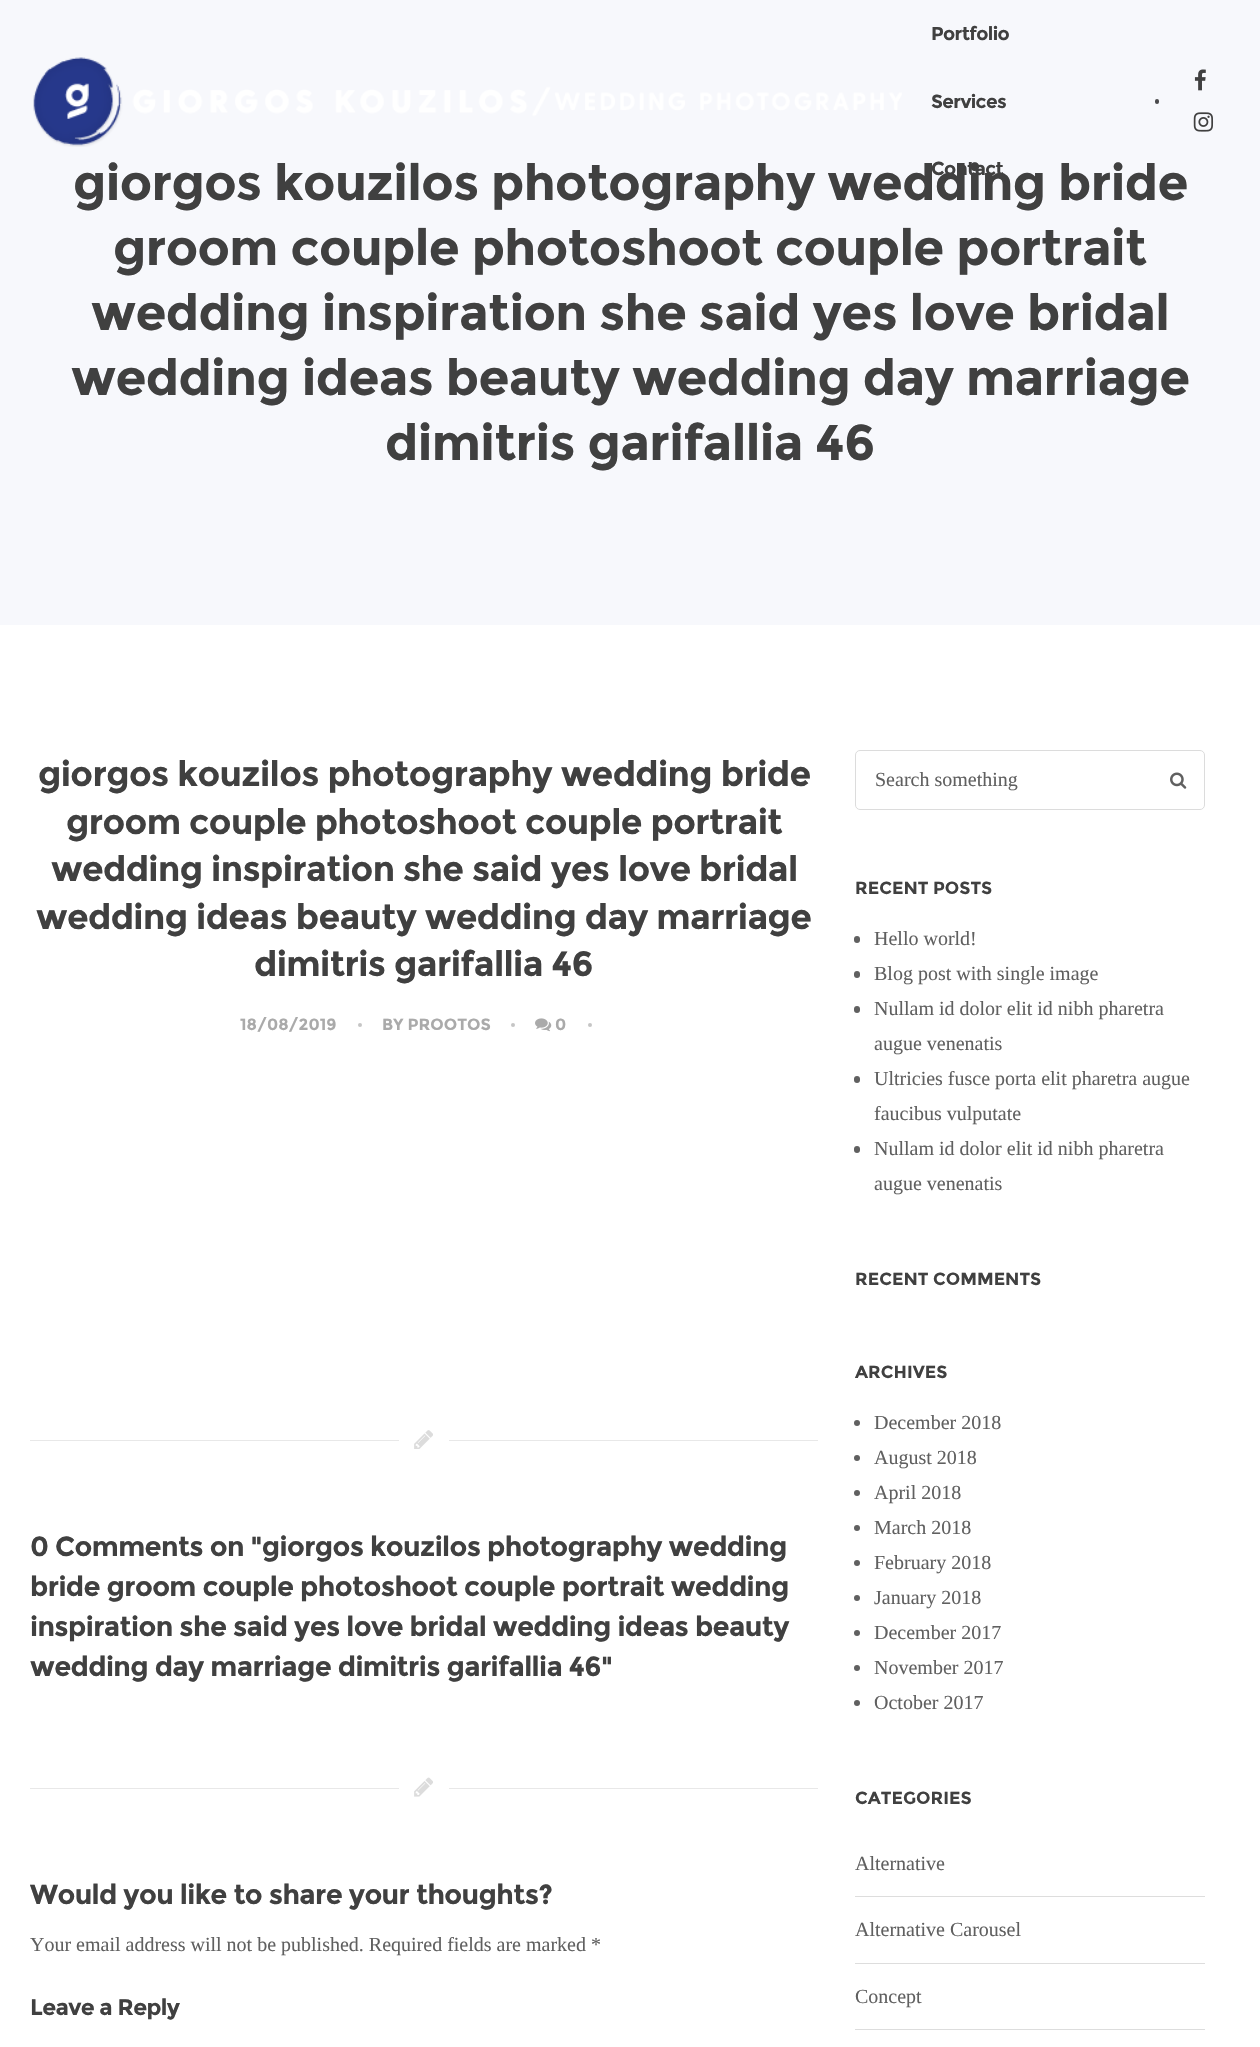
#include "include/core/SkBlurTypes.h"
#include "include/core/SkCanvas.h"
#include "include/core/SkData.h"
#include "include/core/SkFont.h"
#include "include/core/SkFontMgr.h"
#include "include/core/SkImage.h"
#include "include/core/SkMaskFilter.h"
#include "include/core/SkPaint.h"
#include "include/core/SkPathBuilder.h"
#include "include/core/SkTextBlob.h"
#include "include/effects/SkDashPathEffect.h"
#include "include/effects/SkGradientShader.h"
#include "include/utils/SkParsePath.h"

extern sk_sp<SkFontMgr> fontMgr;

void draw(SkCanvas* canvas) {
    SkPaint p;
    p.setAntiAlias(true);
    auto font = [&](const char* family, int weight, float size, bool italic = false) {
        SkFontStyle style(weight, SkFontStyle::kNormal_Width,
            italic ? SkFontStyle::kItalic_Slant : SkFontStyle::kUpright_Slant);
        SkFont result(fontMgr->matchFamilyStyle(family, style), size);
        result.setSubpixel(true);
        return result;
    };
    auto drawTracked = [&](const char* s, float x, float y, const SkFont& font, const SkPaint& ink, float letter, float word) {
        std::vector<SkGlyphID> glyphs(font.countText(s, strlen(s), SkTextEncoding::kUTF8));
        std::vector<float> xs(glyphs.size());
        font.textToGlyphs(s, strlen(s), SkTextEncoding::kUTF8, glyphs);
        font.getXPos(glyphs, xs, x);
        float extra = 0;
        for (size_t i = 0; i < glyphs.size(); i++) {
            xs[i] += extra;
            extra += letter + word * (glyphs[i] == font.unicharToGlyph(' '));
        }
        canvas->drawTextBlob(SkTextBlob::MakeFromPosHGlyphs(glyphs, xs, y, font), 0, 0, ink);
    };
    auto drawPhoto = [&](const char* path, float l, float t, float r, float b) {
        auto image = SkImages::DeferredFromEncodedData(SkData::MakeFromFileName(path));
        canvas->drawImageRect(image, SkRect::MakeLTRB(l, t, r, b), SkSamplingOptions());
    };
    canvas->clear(0xFFFFFFFF);
    p.setColor(0xFFF7F8FC);
    canvas->drawRect(SkRect::MakeLTRB(0, 0, 1260, 625), p);
    drawPhoto("media/1.png", 33, 57, 902, 147);
    auto font1 = font("Montserrat", 700, 18.75f);
    p.setColor(0xFF404040);
    drawTracked("Portfolio", 931, 40, font1, p, -0.62f, 0);
    drawTracked("Services", 931, 108, font1, p, -0.62f, 0);
    auto font2 = font("Montserrat", 700, 50);
    drawTracked("giorgos kouzilos photography wedding bride", 73, 200, font2, p, -0.62f, 0);
    drawTracked("Contact", 931, 175, font1, p, -0.62f, 0);
    p.setColor(0xFF4A4A4C);
    canvas->drawRoundRect(SkRect::MakeLTRB(1155, 99, 1159, 104), 2, 2, p);
    drawPhoto("media/2.png", 1194, 69, 1206, 91);
    drawPhoto("media/3.png", 1193, 112, 1214, 132);
    p.setColor(0xFF404040);
    {
        const struct { const char* s; float x, y; } items[] = {
            {"groom couple photoshoot couple portrait", 113, 265},
            {"wedding inspiration she said yes love bridal", 91, 330},
            {"wedding ideas beauty wedding day marriage", 71, 395},
            {"dimitris garifallia 46", 385, 460},
        };
        for (auto [s, x, y] : items) {
            drawTracked(s, x, y, font2, p, -0.62f, 0);
        }
    }
    auto font3 = font("Montserrat", 700, 35);
    {
        const struct { const char* s; float x, y; } items[] = {
            {"giorgos kouzilos photography wedding bride", 38, 786},
            {"groom couple photoshoot couple portrait", 66, 834},
            {"wedding inspiration she said yes love bridal", 51, 881},
            {"wedding ideas beauty wedding day marriage", 36, 929},
            {"dimitris garifallia 46", 254, 976},
        };
        for (auto [s, x, y] : items) {
            drawTracked(s, x, y, font3, p, -0.62f, 0);
        }
    }
    auto font4 = font("Montserrat", 700, 16.25f);
    p.setColor(0xFFAAAAAA);
    canvas->drawString("18/08/2019", 240, 1030, font4, p);
    p.setColor(0xFFC5C5C5);
    canvas->drawCircle(360, 1025, 2, p);
    p.setColor(0xFFAAAAAA);
    canvas->drawString("BY PROOTOS", 382, 1030, font4, p);
    p.setColor(0xFFC5C5C5);
    canvas->drawCircle(513, 1025, 2, p);
    drawPhoto("media/4.png", 535, 1018, 552, 1032);
    p.setColor(0xFFAAAAAA);
    canvas->drawString("0", 555, 1030, font4, p);
    p.setColor(0xFFC5C5C5);
    canvas->drawCircle(590, 1025, 2, p);
    p.setColor(0xFFE8E8E8);
    canvas->drawRect(SkRect::MakeLTRB(30, 1440, 399, 1441), p);
    drawPhoto("media/5.png", 414, 1430, 433, 1449);
    canvas->drawRect(SkRect::MakeLTRB(449, 1440, 818, 1441), p);
    auto font5 = font("Montserrat", 700, 27.5f);
    p.setColor(0xFF404040);
    {
        const struct { const char* s; float x, y; } items[] = {
            {"0 Comments on \"giorgos kouzilos photography wedding", 30, 1556},
            {"bride groom couple photoshoot couple portrait wedding", 30, 1596},
            {"inspiration she said yes love bridal wedding ideas beauty", 30, 1636},
            {"wedding day marriage dimitris garifallia 46\"", 30, 1676},
        };
        for (auto [s, x, y] : items) {
            drawTracked(s, x, y, font5, p, -0.62f, 0);
        }
    }
    p.setColor(0xFFE8E8E8);
    canvas->drawRect(SkRect::MakeLTRB(30, 1788, 399, 1789), p);
    drawPhoto("media/6.png", 414, 1777, 433, 1797);
    canvas->drawRect(SkRect::MakeLTRB(449, 1788, 818, 1789), p);
    p.setColor(0xFF404040);
    drawTracked("Would you like to share your thoughts?", 30, 1904, font5, p, -0.62f, 0);
    auto font6 = font("Liberation Serif", 400, 20);
    p.setColor(0xFF606060);
    canvas->drawString("Your email address will not be published. Required fields are marked *", 30, 1951, font6, p);
    auto font7 = font("Montserrat", 700, 22.5f);
    p.setColor(0xFF404040);
    drawTracked("Leave a Reply", 30, 2015, font7, p, -0.62f, 0);
    p.setStyle(SkPaint::kStroke_Style);
    p.setStrokeWidth(1);
    p.setColor(0xFFDCDCDC);
    canvas->drawRoundRect(SkRect::MakeLTRB(855.5f, 750.5f, 1204.5f, 809.5f), 4.5f, 4.5f, p);
    p.setStyle(SkPaint::kFill_Style);
    p.setColor(0xFF606060);
    canvas->drawString("Search something", 875, 786, font6, p);
    drawPhoto("media/7.png", 1170, 772, 1187, 789);
    auto font8 = font("Montserrat", 700, 17.5f);
    p.setColor(0xFF404040);
    canvas->drawString("RECENT POSTS", 855, 894, font8, p);
    p.setColor(0xFF606060);
    canvas->drawRoundRect(SkRect::MakeLTRB(854, 936, 860, 943), 3, 3, p);
    canvas->drawString("Hello world!", 874, 945, font6, p);
    canvas->drawRoundRect(SkRect::MakeLTRB(854, 971, 860, 978), 3, 3, p);
    canvas->drawString("Blog post with single image", 874, 980, font6, p);
    canvas->drawRoundRect(SkRect::MakeLTRB(854, 1006, 860, 1013), 3, 3, p);
    canvas->drawString("Nullam id dolor elit id nibh pharetra", 874, 1015, font6, p);
    canvas->drawString("augue venenatis", 874, 1050, font6, p);
    canvas->drawRoundRect(SkRect::MakeLTRB(854, 1076, 860, 1083), 3, 3, p);
    canvas->drawString("Ultricies fusce porta elit pharetra augue", 874, 1085, font6, p);
    canvas->drawString("faucibus vulputate", 874, 1120, font6, p);
    canvas->drawRoundRect(SkRect::MakeLTRB(854, 1146, 860, 1153), 3, 3, p);
    canvas->drawString("Nullam id dolor elit id nibh pharetra", 874, 1155, font6, p);
    canvas->drawString("augue venenatis", 874, 1190, font6, p);
    p.setColor(0xFF404040);
    canvas->drawString("RECENT COMMENTS", 855, 1285, font8, p);
    canvas->drawString("ARCHIVES", 855, 1378, font8, p);
    p.setColor(0xFF606060);
    canvas->drawCircle(857, 1423, 3, p);
    canvas->drawString("December 2018", 874, 1429, font6, p);
    canvas->drawCircle(857, 1458, 3, p);
    canvas->drawString("August 2018", 874, 1464, font6, p);
    canvas->drawCircle(857, 1493, 3, p);
    canvas->drawString("April 2018", 874, 1499, font6, p);
    canvas->drawCircle(857, 1528, 3, p);
    canvas->drawString("March 2018", 874, 1534, font6, p);
    canvas->drawCircle(857, 1563, 3, p);
    canvas->drawString("February 2018", 874, 1569, font6, p);
    canvas->drawCircle(857, 1598, 3, p);
    canvas->drawString("January 2018", 874, 1604, font6, p);
    canvas->drawCircle(857, 1633, 3, p);
    canvas->drawString("December 2017", 874, 1639, font6, p);
    canvas->drawCircle(857, 1668, 3, p);
    canvas->drawString("November 2017", 874, 1674, font6, p);
    canvas->drawCircle(857, 1703, 3, p);
    canvas->drawString("October 2017", 874, 1709, font6, p);
    p.setColor(0xFF404040);
    canvas->drawString("CATEGORIES", 855, 1804, font8, p);
    p.setColor(0xFF606060);
    canvas->drawString("Alternative", 855, 1870, font6, p);
    p.setColor(0xFFDDDDDD);
    canvas->drawRect(SkRect::MakeLTRB(855, 1896, 1205, 1897), p);
    p.setColor(0xFF606060);
    canvas->drawString("Alternative Carousel", 855, 1936, font6, p);
    p.setColor(0xFFDDDDDD);
    canvas->drawRect(SkRect::MakeLTRB(855, 1963, 1205, 1964), p);
    p.setColor(0xFF606060);
    canvas->drawString("Concept", 855, 2003, font6, p);
    p.setColor(0xFFDDDDDD);
    canvas->drawRect(SkRect::MakeLTRB(855, 2029, 1205, 2030), p);
}
